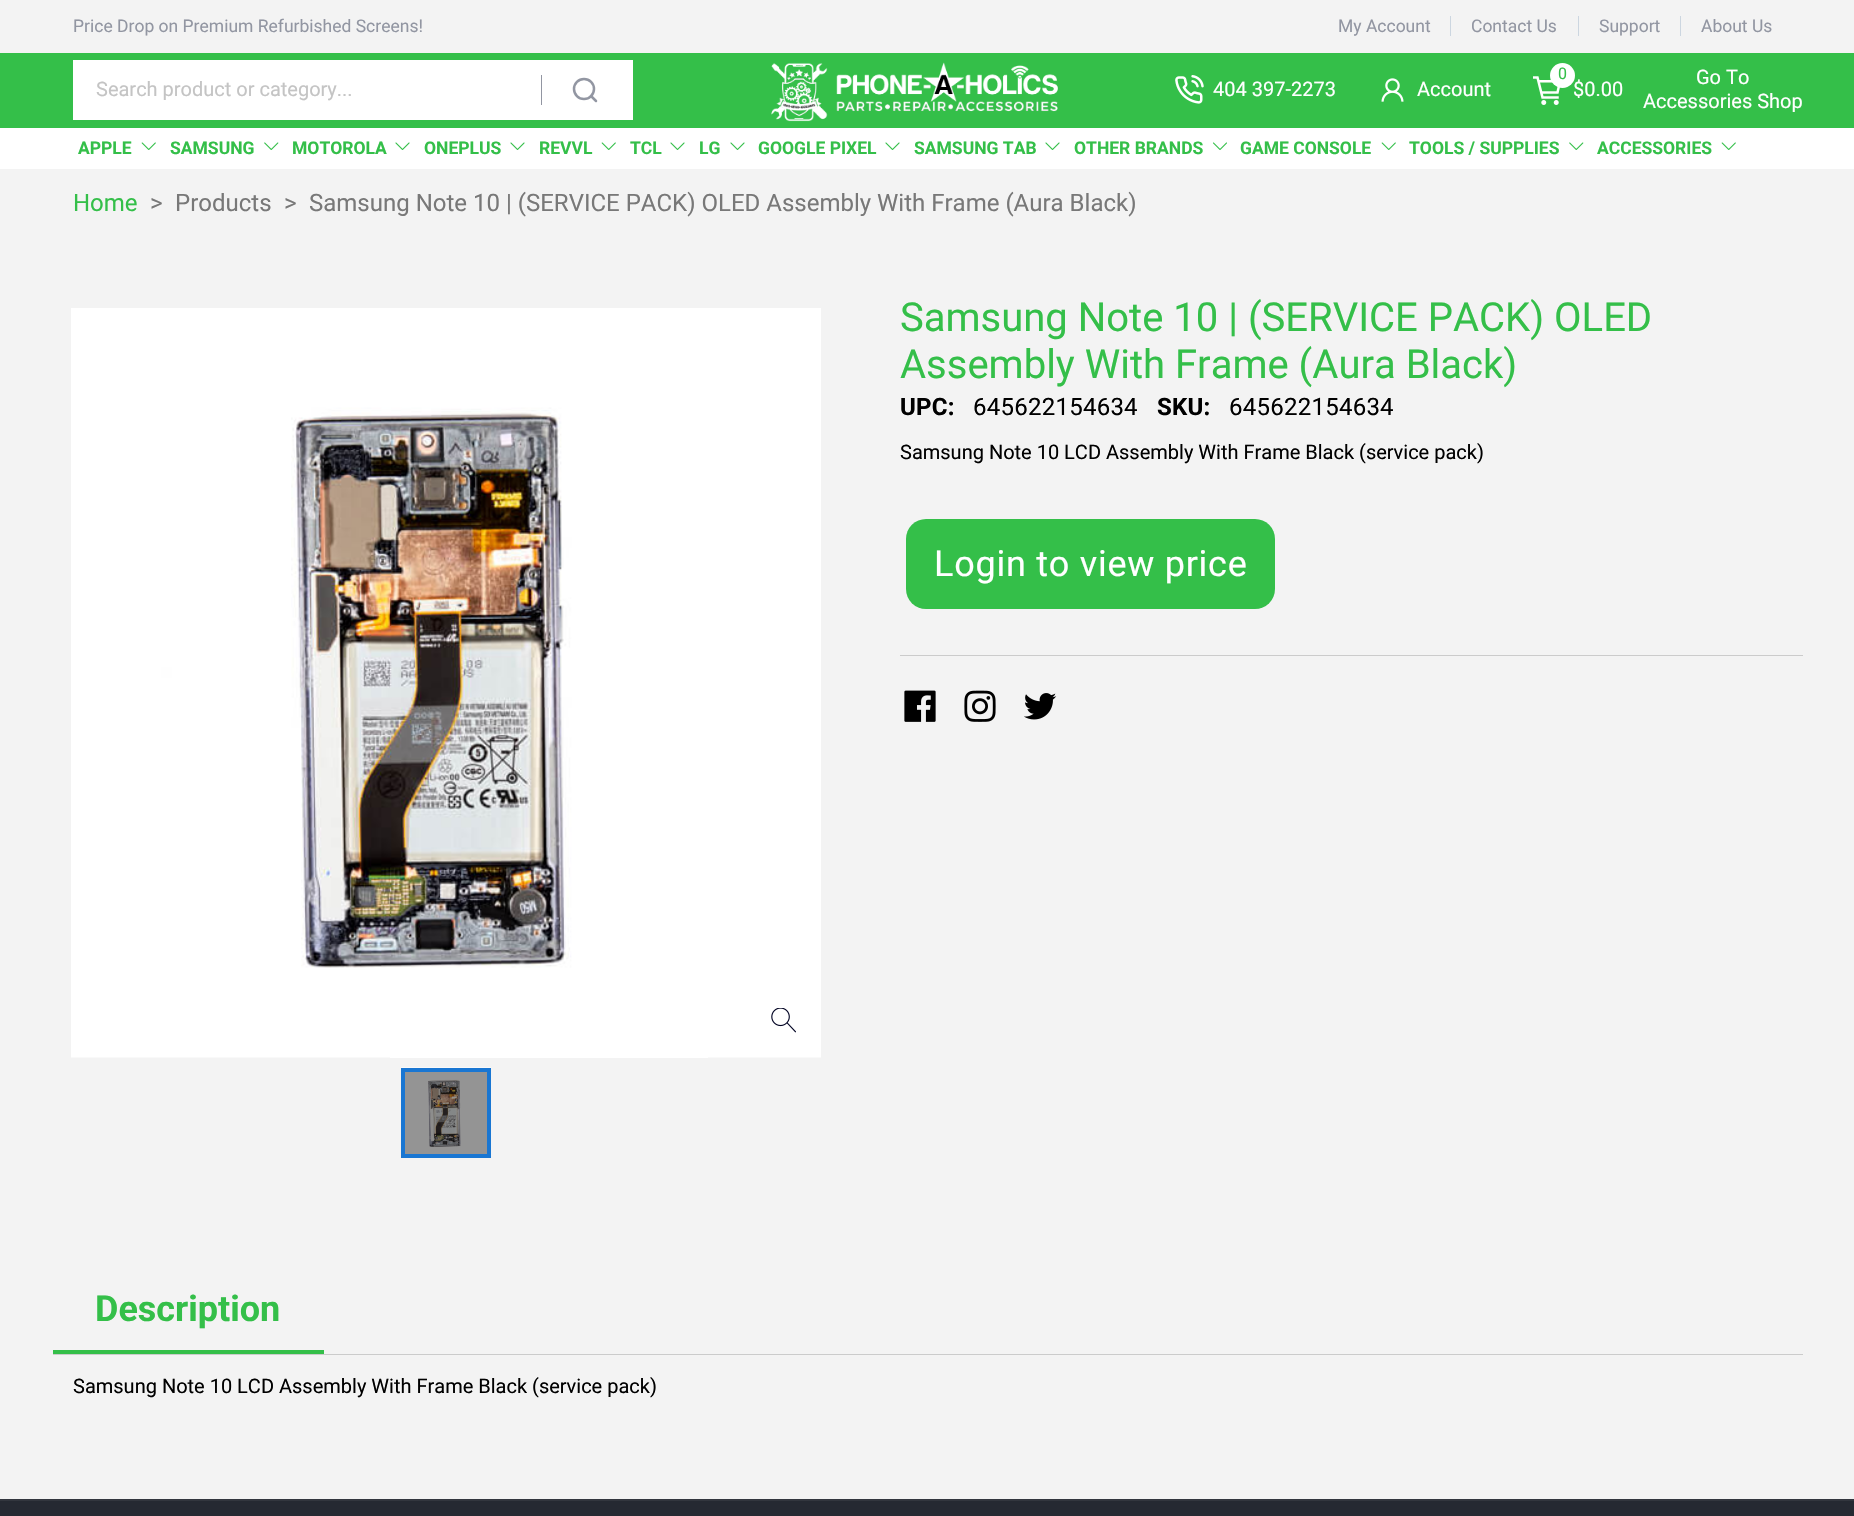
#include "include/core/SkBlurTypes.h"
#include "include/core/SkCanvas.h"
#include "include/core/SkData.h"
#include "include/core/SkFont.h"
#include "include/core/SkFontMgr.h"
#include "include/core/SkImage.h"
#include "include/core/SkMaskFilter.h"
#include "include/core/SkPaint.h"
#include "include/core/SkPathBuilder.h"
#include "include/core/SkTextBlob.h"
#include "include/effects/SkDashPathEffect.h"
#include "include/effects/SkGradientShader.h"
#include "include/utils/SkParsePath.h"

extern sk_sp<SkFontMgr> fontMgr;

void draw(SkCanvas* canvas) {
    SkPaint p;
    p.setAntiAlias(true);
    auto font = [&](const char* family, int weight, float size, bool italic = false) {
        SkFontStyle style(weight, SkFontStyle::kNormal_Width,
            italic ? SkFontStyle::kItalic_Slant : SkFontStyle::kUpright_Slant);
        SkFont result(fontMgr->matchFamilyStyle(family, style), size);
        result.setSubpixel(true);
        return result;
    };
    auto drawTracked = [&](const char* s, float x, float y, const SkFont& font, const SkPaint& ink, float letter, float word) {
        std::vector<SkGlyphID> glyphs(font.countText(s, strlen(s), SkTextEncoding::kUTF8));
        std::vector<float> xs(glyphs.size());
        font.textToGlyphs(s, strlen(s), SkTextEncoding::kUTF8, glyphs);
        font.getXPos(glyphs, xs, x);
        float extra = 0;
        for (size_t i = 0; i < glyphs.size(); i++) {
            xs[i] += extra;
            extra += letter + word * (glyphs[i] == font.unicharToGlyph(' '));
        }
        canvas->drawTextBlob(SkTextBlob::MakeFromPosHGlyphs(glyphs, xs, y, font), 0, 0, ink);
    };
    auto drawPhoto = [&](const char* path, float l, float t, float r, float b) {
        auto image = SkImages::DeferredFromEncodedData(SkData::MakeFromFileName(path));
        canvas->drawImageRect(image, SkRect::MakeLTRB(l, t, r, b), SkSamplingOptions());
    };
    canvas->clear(0xFFF3F3F3);
    auto font1 = font("Roboto", 400, 17.5f);
    p.setColor(0xFF9296A2);
    canvas->drawString("Price Drop on Premium Refurbished Screens!", 73, 32, font1, p);
    canvas->drawString("My Account", 1338, 32, font1, p);
    p.setColor(0xFFCCD6E0);
    canvas->drawRect(SkRect::MakeLTRB(1450, 16, 1451, 36), p);
    p.setColor(0xFF9296A2);
    canvas->drawString("Contact Us", 1471, 32, font1, p);
    p.setColor(0xFFCCD6E0);
    canvas->drawRect(SkRect::MakeLTRB(1578, 16, 1579, 36), p);
    p.setColor(0xFF9296A2);
    canvas->drawString("Support", 1599, 32, font1, p);
    p.setColor(0xFFCCD6E0);
    canvas->drawRect(SkRect::MakeLTRB(1680, 16, 1681, 36), p);
    p.setColor(0xFF9296A2);
    canvas->drawString("About Us", 1701, 32, font1, p);
    p.setColor(0xFF34BF49);
    canvas->drawRect(SkRect::MakeLTRB(0, 53, 1854, 128), p);
    p.setColor(0xFFFFFFFF);
    canvas->drawRect(SkRect::MakeLTRB(73, 60, 633, 120), p);
    auto font2 = font("Roboto", 400, 20);
    p.setColor(0xFFC4C4C4);
    canvas->drawString("Search product or category...", 96, 96, font2, p);
    p.setColor(0xFF9296A2);
    canvas->drawRect(SkRect::MakeLTRB(541, 75, 542, 105), p);
    p.setStyle(SkPaint::kStroke_Style);
    p.setStrokeWidth(2.5f);
    canvas->drawCircle(584, 89, 10, p);
    p.setStrokeCap(SkPaint::kRound_Cap);
    p.setStrokeJoin(SkPaint::kRound_Join);
    canvas->drawPath(SkPathBuilder().moveTo(596, 101).lineTo(591, 96).detach(), p);
    drawPhoto("media/1.png", 771, 62, 1058, 122);
    drawPhoto("media/2.png", 1175, 75, 1204, 104);
    p.setStyle(SkPaint::kFill_Style);
    p.setColor(0xFFFFFFFF);
    canvas->drawString("404 397-2273", 1213, 96, font2, p);
    drawPhoto("media/3.png", 1381, 78, 1404, 102);
    canvas->drawString("Account", 1417, 96, font2, p);
    drawPhoto("media/4.png", 1533, 76, 1560, 105);
    canvas->drawCircle(1562.5f, 75.5f, 12.5f, p);
    auto font3 = font("Roboto", 400, 16);
    p.setColor(0xFF34BF49);
    canvas->drawString("0", 1558, 79, font3, p);
    p.setColor(0xFFFFFFFF);
    {
        const struct { const char* s; float x, y; } items[] = {
            {"$0.00", 1573, 96},
            {"Go To", 1696, 84},
            {"Accessories Shop", 1643, 108},
        };
        for (auto [s, x, y] : items) {
            canvas->drawString(s, x, y, font2, p);
        }
    }
    canvas->drawRect(SkRect::MakeLTRB(0, 128, 1854, 169), p);
    auto font4 = font("Roboto", 700, 17.5f);
    p.setColor(0xFF34BF49);
    canvas->drawString("APPLE", 78, 154, font4, p);
    drawPhoto("media/5.png", 141, 142, 156, 150);
    canvas->drawString("SAMSUNG", 170, 154, font4, p);
    drawPhoto("media/6.png", 264, 142, 279, 150);
    canvas->drawString("MOTOROLA", 292, 154, font4, p);
    drawPhoto("media/7.png", 395, 142, 410, 150);
    canvas->drawString("ONEPLUS", 424, 154, font4, p);
    drawPhoto("media/7.png", 510, 142, 525, 150);
    canvas->drawString("REVVL", 539, 154, font4, p);
    drawPhoto("media/5.png", 601, 142, 616, 150);
    canvas->drawString("TCL", 630, 154, font4, p);
    drawPhoto("media/7.png", 670, 142, 685, 150);
    canvas->drawString("LG", 699, 154, font4, p);
    drawPhoto("media/7.png", 730, 142, 745, 150);
    canvas->drawString("GOOGLE PIXEL", 758, 154, font4, p);
    drawPhoto("media/7.png", 885, 142, 900, 150);
    canvas->drawString("SAMSUNG TAB", 914, 154, font4, p);
    drawPhoto("media/7.png", 1045, 142, 1060, 150);
    canvas->drawString("OTHER BRANDS", 1074, 154, font4, p);
    drawPhoto("media/8.png", 1213, 142, 1227, 150);
    canvas->drawString("GAME CONSOLE", 1240, 154, font4, p);
    drawPhoto("media/5.png", 1381, 142, 1396, 150);
    canvas->drawString("TOOLS / SUPPLIES", 1409, 154, font4, p);
    drawPhoto("media/6.png", 1569, 142, 1584, 150);
    canvas->drawString("ACCESSORIES", 1597, 154, font4, p);
    drawPhoto("media/5.png", 1721, 142, 1736, 150);
    auto font5 = font("Roboto", 400, 24);
    canvas->drawString("Home", 73, 211, font5, p);
    p.setColor(0xFF787878);
    {
        const struct { const char* s; float x, y; } items[] = {
            {">", 150, 211},
            {"Products", 175, 211},
            {">", 284, 211},
            {"Samsung Note 10 | (SERVICE PACK) OLED Assembly With Frame (Aura Black)", 309, 211},
        };
        for (auto [s, x, y] : items) {
            canvas->drawString(s, x, y, font5, p);
        }
    }
    drawPhoto("media/9.png", 71, 308, 821, 1058);
    drawPhoto("media/10.png", 771, 1008, 796, 1033);
    drawPhoto("media/11.png", 401, 1067, 491, 1154);
    p.setStyle(SkPaint::kStroke_Style);
    p.setStrokeWidth(4);
    p.setStrokeCap(SkPaint::kButt_Cap);
    p.setStrokeJoin(SkPaint::kMiter_Join);
    p.setColor(0xFF1976D2);
    canvas->drawRect(SkRect::MakeLTRB(403, 1070, 489, 1156), p);
    auto font6 = font("Roboto", 400, 40);
    p.setStyle(SkPaint::kFill_Style);
    p.setColor(0xFF34BF49);
    canvas->drawString("Samsung Note 10 | (SERVICE PACK) OLED", 900, 331, font6, p);
    canvas->drawString("Assembly With Frame (Aura Black)", 900, 378, font6, p);
    auto font7 = font("Roboto", 700, 24);
    p.setColor(0xFF000000);
    drawTracked("UPC:", 900, 415, font7, p, 0.25f, 0);
    drawTracked("645622154634", 973, 415, font5, p, 0.25f, 0);
    drawTracked("SKU:", 1157, 415, font7, p, 0.25f, 0);
    drawTracked("645622154634", 1229, 415, font5, p, 0.25f, 0);
    canvas->drawString("Samsung Note 10 LCD Assembly With Frame Black (service pack)", 900, 459, font2, p);
    p.setColor(0xFF34BF49);
    canvas->drawRoundRect(SkRect::MakeLTRB(906, 519, 1275, 609), 20, 20, p);
    auto font8 = font("Roboto", 400, 36);
    p.setColor(0xFFFFFFFF);
    drawTracked("Login to view price", 934, 576, font8, p, 0.75f, 0);
    p.setColor(0xFFCBCBCB);
    canvas->drawRect(SkRect::MakeLTRB(900, 655, 1803, 656), p);
    drawPhoto("media/12.png", 904, 690, 936, 722);
    drawPhoto("media/13.png", 964, 690, 996, 722);
    drawPhoto("media/14.png", 1024, 693, 1057, 720);
    canvas->drawRect(SkRect::MakeLTRB(53, 1354, 1803, 1355), p);
    p.setColor(0xFF34BF49);
    canvas->drawRect(SkRect::MakeLTRB(53, 1350, 324, 1354), p);
    auto font9 = font("Roboto", 700, 36);
    canvas->drawString("Description", 95, 1321, font9, p);
    p.setColor(0xFF000000);
    canvas->drawString("Samsung Note 10 LCD Assembly With Frame Black (service pack)", 73, 1393, font2, p);
    p.setColor(0xFF252932);
    canvas->drawRect(SkRect::MakeLTRB(0, 1501, 1854, 1516), p);
    p.setColor(0xFF32363E);
    canvas->drawRect(SkRect::MakeLTRB(0, 1499, 1854, 1501), p);
}
